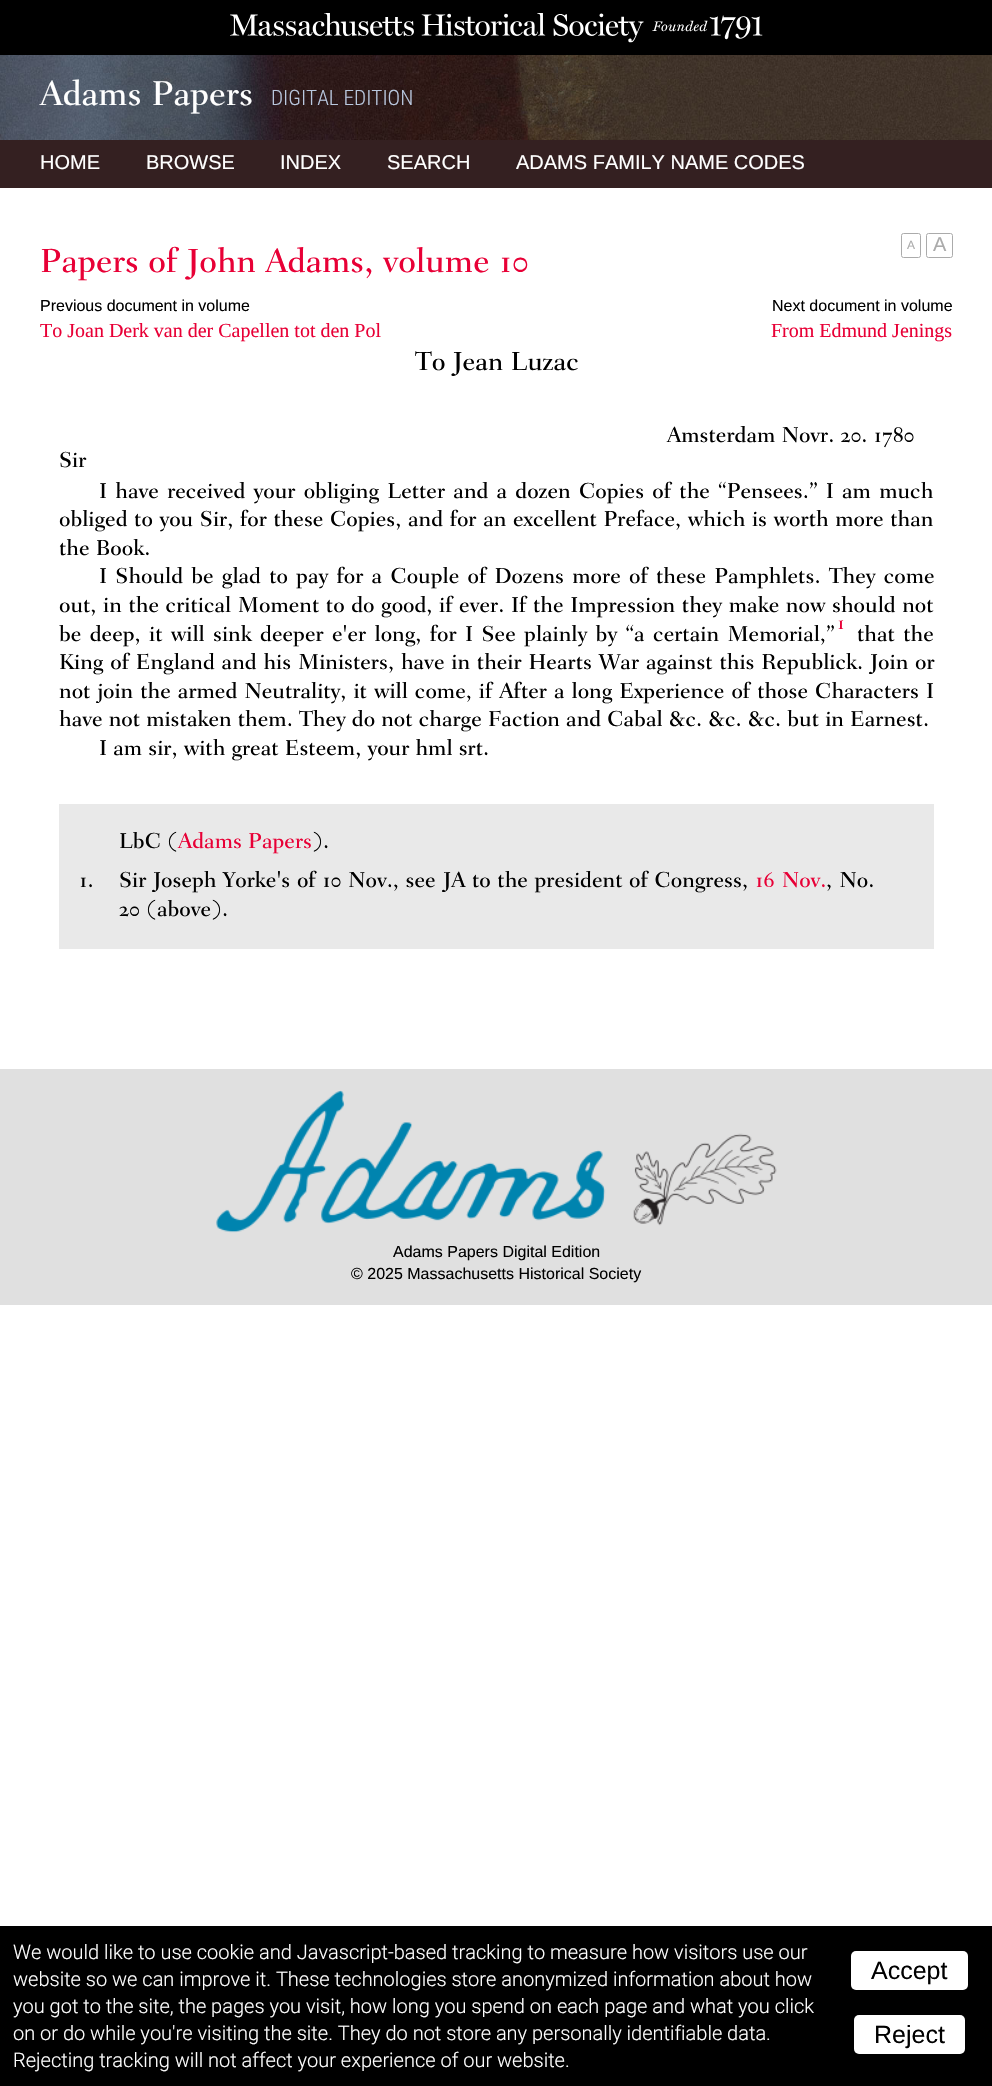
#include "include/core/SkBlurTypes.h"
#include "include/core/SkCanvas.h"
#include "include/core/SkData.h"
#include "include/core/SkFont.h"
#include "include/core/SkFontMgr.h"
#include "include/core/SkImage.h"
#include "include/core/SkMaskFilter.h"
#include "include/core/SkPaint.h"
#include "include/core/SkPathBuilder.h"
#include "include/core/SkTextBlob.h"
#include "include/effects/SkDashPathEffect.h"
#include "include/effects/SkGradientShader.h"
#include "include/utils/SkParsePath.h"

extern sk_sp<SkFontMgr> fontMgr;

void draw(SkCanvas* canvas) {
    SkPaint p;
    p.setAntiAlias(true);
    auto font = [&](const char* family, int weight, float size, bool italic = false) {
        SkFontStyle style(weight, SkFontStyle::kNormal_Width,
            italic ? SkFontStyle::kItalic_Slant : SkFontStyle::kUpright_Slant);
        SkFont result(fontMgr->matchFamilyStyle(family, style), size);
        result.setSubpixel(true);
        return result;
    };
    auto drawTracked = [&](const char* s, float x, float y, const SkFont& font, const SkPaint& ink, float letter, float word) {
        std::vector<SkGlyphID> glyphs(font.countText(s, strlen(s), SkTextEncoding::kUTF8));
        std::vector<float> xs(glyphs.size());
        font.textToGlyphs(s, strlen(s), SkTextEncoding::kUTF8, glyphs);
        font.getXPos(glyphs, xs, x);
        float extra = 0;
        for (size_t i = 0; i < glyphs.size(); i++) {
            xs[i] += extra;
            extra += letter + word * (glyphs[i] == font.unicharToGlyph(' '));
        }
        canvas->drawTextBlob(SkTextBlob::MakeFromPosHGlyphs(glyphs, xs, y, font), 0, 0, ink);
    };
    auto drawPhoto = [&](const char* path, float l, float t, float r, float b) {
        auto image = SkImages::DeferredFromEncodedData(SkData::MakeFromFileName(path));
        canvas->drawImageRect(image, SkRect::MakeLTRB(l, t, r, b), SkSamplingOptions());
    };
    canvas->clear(0xFFFFFFFF);
    p.setColor(0xFF000000);
    canvas->drawRect(SkRect::MakeLTRB(0, 0, 992, 55), p);
    drawPhoto("media/1.png", 230, 13, 763, 43);
    drawPhoto("media/2.png", 0, 55, 992, 140);
    auto font1 = font("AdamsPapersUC", 400, 35);
    p.setColor(0xFFFFFFFF);
    canvas->drawString("Adams Papers", 40, 105, font1, p);
    auto font2 = font("Roboto Condensed", 300, 21.25f);
    p.setColor(0xFFB9C8DF);
    canvas->drawString("DIGITAL EDITION", 271, 105, font2, p);
    p.setColor(0xFF342021);
    canvas->drawRect(SkRect::MakeLTRB(0, 140, 992, 188), p);
    auto font3 = font("Liberation Sans", 400, 20);
    p.setColor(0xFFFFFFFF);
    {
        const struct { const char* s; float x, y; } items[] = {
            {"HOME", 40, 169},
            {"BROWSE", 146, 169},
            {"INDEX", 280, 169},
            {"SEARCH", 387, 169},
            {"ADAMS FAMILY NAME CODES", 516, 169},
        };
        for (auto [s, x, y] : items) {
            canvas->drawString(s, x, y, font3, p);
        }
    }
    p.setStyle(SkPaint::kStroke_Style);
    p.setStrokeWidth(1);
    p.setColor(0xFFABABAB);
    canvas->drawRoundRect(SkRect::MakeLTRB(901.5f, 233.5f, 920.5f, 257.5f), 2, 2, p);
    auto font4 = font("Liberation Sans", 400, 12);
    p.setStyle(SkPaint::kFill_Style);
    canvas->drawString("A", 907, 249, font4, p);
    p.setStyle(SkPaint::kStroke_Style);
    canvas->drawRoundRect(SkRect::MakeLTRB(926.5f, 233.5f, 952.5f, 257.5f), 2, 2, p);
    p.setStyle(SkPaint::kFill_Style);
    canvas->drawString("A", 933, 251, font3, p);
    auto font5 = font("AdamsPapersUC", 400, 34);
    p.setColor(0xFFE80036);
    canvas->drawString("Papers of John Adams, volume 10", 40, 272, font5, p);
    auto font6 = font("Liberation Sans", 400, 16);
    p.setColor(0xFF000000);
    canvas->drawString("Previous document in volume", 40, 311, font6, p);
    auto font7 = font("Liberation Serif", 400, 20);
    p.setColor(0xFFE80036);
    canvas->drawString("To Joan Derk van der Capellen tot den Pol", 40, 337, font7, p);
    p.setColor(0xFF000000);
    canvas->drawString("Next document in volume", 772, 311, font6, p);
    p.setColor(0xFFE80036);
    canvas->drawString("From Edmund Jenings", 771, 337, font7, p);
    auto font8 = font("AdamsPapersUC", 400, 26.5f);
    p.setColor(0xFF000000);
    canvas->drawString("To Jean Luzac", 415, 370, font8, p);
    auto font9 = font("AdamsPapersUC", 400, 22);
    canvas->drawString("Amsterdam Novr. 20. 1780", 667, 442, font9, p);
    canvas->drawString("Sir", 59, 467, font9, p);
    drawTracked("I have received your obliging Letter and a dozen Copies of the “Pensees.” I am much", 99, 498, font9, p, 0, 2.1f);
    drawTracked("obliged to you Sir, for these Copies, and for an excellent Preface, which is worth more than", 59, 526, font9, p, 0, 0.5f);
    canvas->drawString("the Book.", 59, 555, font9, p);
    drawTracked("I Should be glad to pay for a Couple of Dozens more of these Pamphlets. They come", 99, 583, font9, p, 0, 2.1f);
    drawTracked("out, in the critical Moment to do good, if ever. If the Impression they make now should not", 59, 612, font9, p, 0, 0.5f);
    drawTracked("be deep, it will sink deeper e'er long, for I See plainly by “a certain Memorial,”", 59, 641, font9, p, 0, 2.25f);
    auto font10 = font("AdamsPapersUC", 400, 20);
    p.setColor(0xFFE80036);
    canvas->drawString("1", 837, 629, font10, p);
    p.setColor(0xFF000000);
    drawTracked("that the", 857, 641, font9, p, 0, 2.25f);
    drawTracked("King of England and his Ministers, have in their Hearts War against this Republick. Join or", 59, 669, font9, p, 0, 0.7f);
    drawTracked("not join the armed Neutrality, it will come, if After a long Experience of those Characters I", 59, 698, font9, p, 0, 0.9f);
    canvas->drawString("have not mistaken them. They do not charge Faction and Cabal &c. &c. &c. but in Earnest.", 59, 726, font9, p);
    canvas->drawString("I am sir, with great Esteem, your hml srt.", 99, 755, font9, p);
    p.setColor(0xFFE9E9E9);
    canvas->drawRect(SkRect::MakeLTRB(59, 804, 934, 949), p);
    p.setColor(0xFF000000);
    canvas->drawString("LbC (", 119, 848, font9, p);
    p.setColor(0xFFE80036);
    canvas->drawString("Adams Papers", 178, 848, font9, p);
    p.setColor(0xFF000000);
    canvas->drawString(").", 312, 848, font9, p);
    canvas->drawString("1.", 79, 887, font9, p);
    drawTracked("Sir Joseph Yorke's of 10 Nov., see", 119, 887, font9, p, 0, 0.5f);
    canvas->drawString("JA", 443, 887, font9, p);
    drawTracked("to the president of Congress,", 472, 887, font9, p, 0, 0.5f);
    p.setColor(0xFFE80036);
    drawTracked("16 Nov.", 755, 887, font9, p, 0, 1);
    p.setColor(0xFF000000);
    drawTracked(", No.", 826, 887, font9, p, 0, 1);
    canvas->drawString("20 (above).", 119, 916, font9, p);
    p.setColor(0xFFE0E0E0);
    canvas->drawRect(SkRect::MakeLTRB(0, 1069, 992, 1305), p);
    drawPhoto("media/3.png", 216, 1090, 777, 1233);
    p.setColor(0xFF000000);
    canvas->drawString("Adams Papers Digital Edition", 393, 1257, font6, p);
    canvas->drawString("© 2025 Massachusetts Historical Society", 351, 1279, font6, p);
    canvas->drawRect(SkRect::MakeLTRB(0, 1926, 992, 2086), p);
    auto font11 = font("Roboto", 300, 20);
    p.setColor(0xFFFFFFFF);
    {
        const struct { const char* s; float x, y; } items[] = {
            {"We would like to use cookie and Javascript-based tracking to measure how visitors use our", 13, 1959},
            {"website so we can improve it. These technologies store anonymized information about how", 13, 1986},
            {"you got to the site, the pages you visit, how long you spend on each page and what you click", 13, 2013},
            {"on or do while you're visiting the site. They do not store any personally identifiable data.", 13, 2040},
            {"Rejecting tracking will not affect your experience of our website.", 13, 2067},
        };
        for (auto [s, x, y] : items) {
            canvas->drawString(s, x, y, font11, p);
        }
    }
    canvas->drawRoundRect(SkRect::MakeLTRB(851, 1951, 968, 1990), 5, 5, p);
    auto font12 = font("Liberation Sans", 400, 25);
    p.setColor(0xFF000000);
    canvas->drawString("Accept", 871, 1979, font12, p);
    p.setColor(0xFFFFFFFF);
    canvas->drawRoundRect(SkRect::MakeLTRB(854, 2015, 965, 2054), 5, 5, p);
    p.setColor(0xFF000000);
    canvas->drawString("Reject", 874, 2043, font12, p);
}
